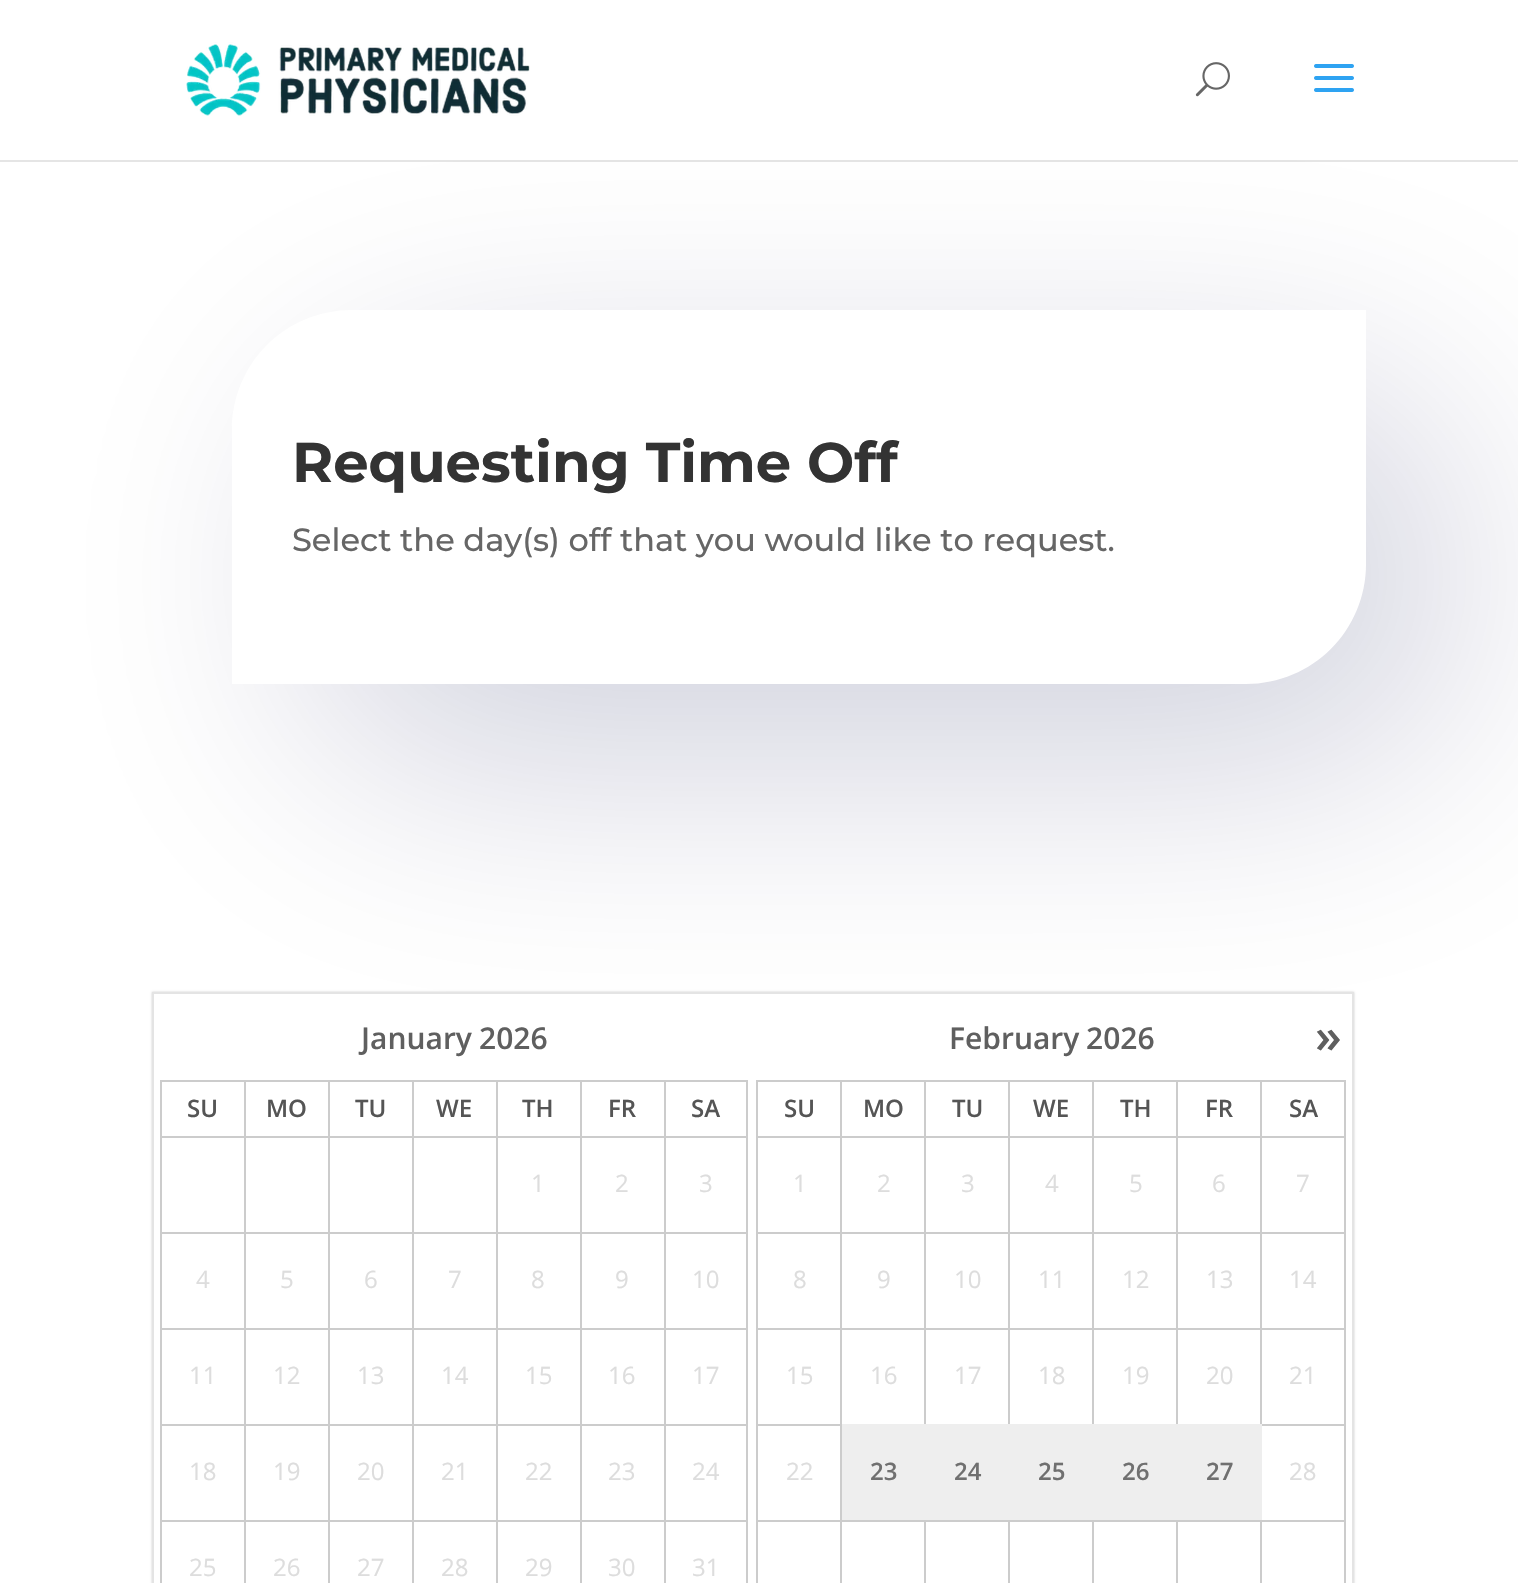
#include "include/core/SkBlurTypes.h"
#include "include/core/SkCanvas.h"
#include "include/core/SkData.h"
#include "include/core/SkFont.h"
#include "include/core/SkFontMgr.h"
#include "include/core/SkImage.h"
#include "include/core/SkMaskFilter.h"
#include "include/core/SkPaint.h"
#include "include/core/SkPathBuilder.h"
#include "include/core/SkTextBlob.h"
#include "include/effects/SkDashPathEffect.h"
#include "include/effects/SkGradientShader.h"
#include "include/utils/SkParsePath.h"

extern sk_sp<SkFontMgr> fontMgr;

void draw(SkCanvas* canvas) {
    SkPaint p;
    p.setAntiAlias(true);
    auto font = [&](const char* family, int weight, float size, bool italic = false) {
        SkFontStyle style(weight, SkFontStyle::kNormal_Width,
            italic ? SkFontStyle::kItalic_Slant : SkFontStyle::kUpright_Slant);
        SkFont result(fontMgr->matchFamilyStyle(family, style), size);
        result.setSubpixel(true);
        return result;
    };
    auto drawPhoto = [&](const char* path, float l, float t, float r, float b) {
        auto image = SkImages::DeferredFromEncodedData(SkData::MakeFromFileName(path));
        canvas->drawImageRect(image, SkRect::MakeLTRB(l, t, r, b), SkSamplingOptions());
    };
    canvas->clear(0xFFFFFFFF);
    canvas->save();
    canvas->clipPath(SkPathBuilder(SkPathFillType::kEvenOdd).moveTo(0, 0).lineTo(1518, 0).lineTo(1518, 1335).lineTo(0, 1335).close().moveTo(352, 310).lineTo(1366, 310).lineTo(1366, 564).cubicTo(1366, 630.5f, 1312.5f, 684, 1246, 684).lineTo(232, 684).lineTo(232, 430).cubicTo(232, 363.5f, 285.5f, 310, 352, 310).close().detach(), true);
    p.setColor(0x30060A4C);
    p.setMaskFilter(SkMaskFilter::MakeBlur(kNormal_SkBlurStyle, 190));
    canvas->drawRoundRect(SkRect::MakeLTRB(312, 390, 1446, 764), 120, 120, p);
    p.setMaskFilter(nullptr);
    canvas->restore();
    p.setColor(0x1A000000);
    canvas->drawRect(SkRect::MakeLTRB(0, 160, 1518, 162), p);
    p.setColor(0xFFFFFFFF);
    canvas->drawRect(SkRect::MakeLTRB(333, 88, 1425, 160), p);
    drawPhoto("media/1.png", 186, 42, 530, 116);
    drawPhoto("media/2.png", 1195, 62, 1230, 97);
    drawPhoto("media/3.png", 1314, 64, 1354, 92);
    auto font1 = font("Montserrat", 700, 56);
    p.setColor(0xFF333333);
    canvas->drawString("Requesting Time Off", 292, 482, font1, p);
    auto font2 = font("Montserrat", 500, 32);
    p.setColor(0xFF666666);
    canvas->drawString("Select the day(s) off that you would like to request.", 292, 551, font2, p);
    p.setColor(0xFFCACACA);
    p.setMaskFilter(SkMaskFilter::MakeBlur(kNormal_SkBlurStyle, 1));
    canvas->drawRect(SkRect::MakeLTRB(152, 992, 1354, 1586), p);
    p.setMaskFilter(nullptr);
    p.setColor(0xFFFFFFFF);
    canvas->drawRect(SkRect::MakeLTRB(153, 993, 1353, 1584), p);
    p.setStyle(SkPaint::kStroke_Style);
    p.setStrokeWidth(2);
    p.setColor(0xFFE4E4E4);
    canvas->drawRect(SkRect::MakeLTRB(153, 993, 1353, 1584), p);
    auto font3 = font("Open Sans", 600, 30);
    p.setStyle(SkPaint::kFill_Style);
    p.setColor(0xFF5F5F5F);
    canvas->drawString("January", 361, 1049, font3, p);
    canvas->drawString("2026", 479, 1049, font3, p);
    {
        const struct { float l, t, r, b; SkColor color; } items[] = {
            {664, 1080, 748, 1082, 0xFFCCCCCC},
            {664, 1136, 748, 1138, 0xFFCCCCCC},
            {664, 1232, 748, 1234, 0xFFCCCCCC},
            {664, 1328, 748, 1330, 0xFFCCCCCC},
            {664, 1424, 748, 1426, 0xFFCCCCCC},
            {664, 1520, 748, 1522, 0xFFCCCCCC},
            {664, 1520, 666, 1583, 0xFFCCCCCC},
            {580, 1520, 666, 1522, 0xFFCCCCCC},
            {664, 1424, 666, 1522, 0xFFCCCCCC},
            {580, 1424, 666, 1426, 0xFFCCCCCC},
            {664, 1328, 666, 1426, 0xFFCCCCCC},
            {580, 1328, 666, 1330, 0xFFCCCCCC},
            {664, 1232, 666, 1330, 0xFFCCCCCC},
            {580, 1232, 666, 1234, 0xFFCCCCCC},
            {664, 1136, 666, 1234, 0xFFCCCCCC},
            {580, 1136, 666, 1138, 0xFFCCCCCC},
            {664, 1080, 666, 1138, 0xFFCCCCCC},
            {580, 1080, 666, 1082, 0xFFCCCCCC},
            {580, 1520, 582, 1583, 0xFFCCCCCC},
            {496, 1520, 582, 1522, 0xFFCCCCCC},
            {580, 1424, 582, 1522, 0xFFCCCCCC},
            {496, 1424, 582, 1426, 0xFFCCCCCC},
            {580, 1328, 582, 1426, 0xFFCCCCCC},
            {496, 1328, 582, 1330, 0xFFCCCCCC},
            {580, 1232, 582, 1330, 0xFFCCCCCC},
            {496, 1232, 582, 1234, 0xFFCCCCCC},
            {580, 1136, 582, 1234, 0xFFCCCCCC},
            {496, 1136, 582, 1138, 0xFFCCCCCC},
            {580, 1080, 582, 1138, 0xFFCCCCCC},
            {496, 1080, 582, 1082, 0xFFCCCCCC},
            {496, 1520, 498, 1583, 0xFFCCCCCC},
            {412, 1520, 498, 1522, 0xFFCCCCCC},
            {496, 1424, 498, 1522, 0xFFCCCCCC},
            {412, 1424, 498, 1426, 0xFFCCCCCC},
            {496, 1328, 498, 1426, 0xFFCCCCCC},
            {412, 1328, 498, 1330, 0xFFCCCCCC},
            {496, 1232, 498, 1330, 0xFFCCCCCC},
            {412, 1232, 498, 1234, 0xFFCCCCCC},
            {496, 1136, 498, 1234, 0xFFCCCCCC},
            {412, 1136, 498, 1138, 0xFFCCCCCC},
            {496, 1080, 498, 1138, 0xFFCCCCCC},
            {412, 1080, 498, 1082, 0xFFCCCCCC},
            {412, 1520, 414, 1583, 0xFFCCCCCC},
            {328, 1520, 414, 1522, 0xFFCCCCCC},
            {412, 1424, 414, 1522, 0xFFCCCCCC},
            {328, 1424, 414, 1426, 0xFFCCCCCC},
            {412, 1328, 414, 1426, 0xFFCCCCCC},
            {328, 1328, 414, 1330, 0xFFCCCCCC},
            {412, 1232, 414, 1330, 0xFFCCCCCC},
            {328, 1232, 414, 1234, 0xFFCCCCCC},
            {412, 1136, 414, 1234, 0xFFCCCCCC},
            {328, 1136, 414, 1138, 0xFFCCCCCC},
            {412, 1080, 414, 1138, 0xFFCCCCCC},
            {328, 1080, 414, 1082, 0xFFCCCCCC},
            {328, 1520, 330, 1583, 0xFFCCCCCC},
            {244, 1520, 330, 1522, 0xFFCCCCCC},
            {328, 1424, 330, 1522, 0xFFCCCCCC},
            {244, 1424, 330, 1426, 0xFFCCCCCC},
            {328, 1328, 330, 1426, 0xFFCCCCCC},
            {244, 1328, 330, 1330, 0xFFCCCCCC},
            {328, 1232, 330, 1330, 0xFFCCCCCC},
            {244, 1232, 330, 1234, 0xFFCCCCCC},
            {328, 1136, 330, 1234, 0xFFCCCCCC},
            {244, 1136, 330, 1138, 0xFFCCCCCC},
            {328, 1080, 330, 1138, 0xFFCCCCCC},
            {244, 1080, 330, 1082, 0xFFCCCCCC},
            {244, 1520, 246, 1583, 0xFFCCCCCC},
            {160, 1520, 246, 1522, 0xFFCCCCCC},
            {244, 1424, 246, 1522, 0xFFCCCCCC},
            {160, 1424, 246, 1426, 0xFFCCCCCC},
            {244, 1328, 246, 1426, 0xFFCCCCCC},
            {160, 1328, 246, 1330, 0xFFCCCCCC},
            {244, 1232, 246, 1330, 0xFFCCCCCC},
            {160, 1232, 246, 1234, 0xFFCCCCCC},
            {244, 1136, 246, 1234, 0xFFCCCCCC},
            {160, 1136, 246, 1138, 0xFFCCCCCC},
            {244, 1080, 246, 1138, 0xFFCCCCCC},
            {160, 1080, 246, 1082, 0xFFCCCCCC},
            {160, 1520, 162, 1583, 0xFFCCCCCC},
            {160, 1424, 162, 1522, 0xFFCCCCCC},
            {160, 1328, 162, 1426, 0xFFCCCCCC},
            {160, 1232, 162, 1330, 0xFFCCCCCC},
            {160, 1136, 162, 1234, 0xFFCCCCCC},
            {160, 1080, 162, 1138, 0xFFCCCCCC},
        };
        for (auto [l, t, r, b, color] : items) {
            p.setColor(color);
            canvas->drawRect(SkRect::MakeLTRB(l, t, r, b), p);
        }
    }
    auto font4 = font("Open Sans", 600, 24);
    p.setColor(0xFF555555);
    {
        const struct { const char* s; float x, y; } items[] = {
            {"SU", 187, 1117},
            {"MO", 266, 1117},
            {"TU", 355, 1117},
            {"WE", 436, 1117},
            {"TH", 522, 1117},
            {"FR", 608, 1117},
        };
        for (auto [s, x, y] : items) {
            canvas->drawString(s, x, y, font4, p);
        }
    }
    {
        const struct { float l, t, r, b; SkColor color; } items[] = {
            {746, 1520, 748, 1583, 0xFFCCCCCC},
            {746, 1424, 748, 1522, 0xFFCCCCCC},
            {746, 1328, 748, 1426, 0xFFCCCCCC},
            {746, 1232, 748, 1330, 0xFFCCCCCC},
            {746, 1136, 748, 1234, 0xFFCCCCCC},
            {746, 1080, 748, 1138, 0xFFCCCCCC},
        };
        for (auto [l, t, r, b, color] : items) {
            p.setColor(color);
            canvas->drawRect(SkRect::MakeLTRB(l, t, r, b), p);
        }
    }
    p.setColor(0xFF555555);
    canvas->drawString("SA", 691, 1117, font4, p);
    auto font5 = font("Open Sans", 400, 24);
    p.setColor(0xFFDDDDDD);
    {
        const struct { const char* s; float x, y; } items[] = {
            {"1", 531, 1192},
            {"2", 615, 1192},
            {"3", 699, 1192},
            {"4", 196, 1288},
            {"5", 280, 1288},
            {"6", 364, 1288},
            {"7", 448, 1288},
            {"8", 531, 1288},
            {"9", 615, 1288},
            {"10", 692, 1288},
            {"11", 189, 1384},
            {"12", 273, 1384},
            {"13", 357, 1384},
            {"14", 441, 1384},
            {"15", 525, 1384},
            {"16", 608, 1384},
            {"17", 692, 1384},
            {"18", 189, 1480},
            {"19", 273, 1480},
            {"20", 357, 1480},
            {"21", 441, 1480},
            {"22", 525, 1480},
            {"23", 608, 1480},
            {"24", 692, 1480},
            {"25", 189, 1576},
            {"26", 273, 1576},
            {"27", 357, 1576},
            {"28", 441, 1576},
            {"29", 525, 1576},
            {"30", 608, 1576},
            {"31", 692, 1576},
        };
        for (auto [s, x, y] : items) {
            canvas->drawString(s, x, y, font5, p);
        }
    }
    p.setColor(0xFF5F5F5F);
    canvas->drawString("February", 949, 1049, font3, p);
    canvas->drawString("2026", 1086, 1049, font3, p);
    {
        const struct { float l, t, r, b; SkColor color; } items[] = {
            {1260, 1080, 1346, 1082, 0xFFCCCCCC},
            {1260, 1136, 1346, 1138, 0xFFCCCCCC},
            {1260, 1232, 1346, 1234, 0xFFCCCCCC},
            {1260, 1328, 1346, 1330, 0xFFCCCCCC},
            {1260, 1424, 1346, 1426, 0xFFCCCCCC},
            {1260, 1328, 1262, 1426, 0xFFCCCCCC},
            {1176, 1328, 1262, 1330, 0xFFCCCCCC},
            {1260, 1232, 1262, 1330, 0xFFCCCCCC},
            {1176, 1232, 1262, 1234, 0xFFCCCCCC},
            {1260, 1136, 1262, 1234, 0xFFCCCCCC},
            {1176, 1136, 1262, 1138, 0xFFCCCCCC},
            {1260, 1080, 1262, 1138, 0xFFCCCCCC},
            {1176, 1080, 1262, 1082, 0xFFCCCCCC},
            {1176, 1328, 1178, 1426, 0xFFCCCCCC},
            {1092, 1328, 1178, 1330, 0xFFCCCCCC},
            {1176, 1232, 1178, 1330, 0xFFCCCCCC},
            {1092, 1232, 1178, 1234, 0xFFCCCCCC},
            {1176, 1136, 1178, 1234, 0xFFCCCCCC},
            {1092, 1136, 1178, 1138, 0xFFCCCCCC},
            {1176, 1080, 1178, 1138, 0xFFCCCCCC},
            {1092, 1080, 1178, 1082, 0xFFCCCCCC},
            {1092, 1328, 1094, 1426, 0xFFCCCCCC},
            {1008, 1328, 1094, 1330, 0xFFCCCCCC},
            {1092, 1232, 1094, 1330, 0xFFCCCCCC},
            {1008, 1232, 1094, 1234, 0xFFCCCCCC},
            {1092, 1136, 1094, 1234, 0xFFCCCCCC},
            {1008, 1136, 1094, 1138, 0xFFCCCCCC},
            {1092, 1080, 1094, 1138, 0xFFCCCCCC},
            {1008, 1080, 1094, 1082, 0xFFCCCCCC},
            {1008, 1328, 1010, 1426, 0xFFCCCCCC},
            {924, 1328, 1010, 1330, 0xFFCCCCCC},
            {1008, 1232, 1010, 1330, 0xFFCCCCCC},
            {924, 1232, 1010, 1234, 0xFFCCCCCC},
            {1008, 1136, 1010, 1234, 0xFFCCCCCC},
            {924, 1136, 1010, 1138, 0xFFCCCCCC},
            {1008, 1080, 1010, 1138, 0xFFCCCCCC},
            {924, 1080, 1010, 1082, 0xFFCCCCCC},
            {924, 1328, 926, 1426, 0xFFCCCCCC},
            {840, 1328, 926, 1330, 0xFFCCCCCC},
            {924, 1232, 926, 1330, 0xFFCCCCCC},
            {840, 1232, 926, 1234, 0xFFCCCCCC},
            {924, 1136, 926, 1234, 0xFFCCCCCC},
            {840, 1136, 926, 1138, 0xFFCCCCCC},
            {924, 1080, 926, 1138, 0xFFCCCCCC},
            {840, 1080, 926, 1082, 0xFFCCCCCC},
            {1260, 1520, 1346, 1522, 0xFFCCCCCC},
            {1260, 1520, 1262, 1583, 0xFFCCCCCC},
            {1176, 1520, 1262, 1522, 0xFFCCCCCC},
            {1176, 1520, 1178, 1583, 0xFFCCCCCC},
            {1092, 1520, 1178, 1522, 0xFFCCCCCC},
            {1092, 1520, 1094, 1583, 0xFFCCCCCC},
            {1008, 1520, 1094, 1522, 0xFFCCCCCC},
            {1008, 1520, 1010, 1583, 0xFFCCCCCC},
            {924, 1520, 1010, 1522, 0xFFCCCCCC},
            {924, 1520, 926, 1583, 0xFFCCCCCC},
            {840, 1520, 926, 1522, 0xFFCCCCCC},
            {840, 1520, 842, 1583, 0xFFCCCCCC},
            {756, 1520, 842, 1522, 0xFFCCCCCC},
            {840, 1424, 842, 1522, 0xFFCCCCCC},
            {756, 1424, 842, 1426, 0xFFCCCCCC},
            {840, 1328, 842, 1426, 0xFFCCCCCC},
            {756, 1328, 842, 1330, 0xFFCCCCCC},
            {840, 1232, 842, 1330, 0xFFCCCCCC},
            {756, 1232, 842, 1234, 0xFFCCCCCC},
            {840, 1136, 842, 1234, 0xFFCCCCCC},
            {756, 1136, 842, 1138, 0xFFCCCCCC},
            {840, 1080, 842, 1138, 0xFFCCCCCC},
            {756, 1080, 842, 1082, 0xFFCCCCCC},
            {756, 1520, 758, 1583, 0xFFCCCCCC},
            {756, 1424, 758, 1522, 0xFFCCCCCC},
            {756, 1328, 758, 1426, 0xFFCCCCCC},
            {756, 1232, 758, 1330, 0xFFCCCCCC},
            {756, 1136, 758, 1234, 0xFFCCCCCC},
            {756, 1080, 758, 1138, 0xFFCCCCCC},
        };
        for (auto [l, t, r, b, color] : items) {
            p.setColor(color);
            canvas->drawRect(SkRect::MakeLTRB(l, t, r, b), p);
        }
    }
    p.setColor(0xFF555555);
    {
        const struct { const char* s; float x, y; } items[] = {
            {"SU", 784, 1117},
            {"MO", 863, 1117},
            {"TU", 952, 1117},
            {"WE", 1033, 1117},
            {"TH", 1120, 1117},
            {"FR", 1205, 1117},
        };
        for (auto [s, x, y] : items) {
            canvas->drawString(s, x, y, font4, p);
        }
    }
    {
        const struct { float l, t, r, b; SkColor color; } items[] = {
            {1344, 1520, 1346, 1583, 0xFFCCCCCC},
            {1344, 1424, 1346, 1522, 0xFFCCCCCC},
            {1344, 1328, 1346, 1426, 0xFFCCCCCC},
            {1344, 1232, 1346, 1330, 0xFFCCCCCC},
            {1344, 1136, 1346, 1234, 0xFFCCCCCC},
            {1344, 1080, 1346, 1138, 0xFFCCCCCC},
        };
        for (auto [l, t, r, b, color] : items) {
            p.setColor(color);
            canvas->drawRect(SkRect::MakeLTRB(l, t, r, b), p);
        }
    }
    p.setColor(0xFF555555);
    canvas->drawString("SA", 1289, 1117, font4, p);
    p.setColor(0xFFDDDDDD);
    {
        const struct { const char* s; float x, y; } items[] = {
            {"1", 793, 1192},
            {"2", 877, 1192},
            {"3", 961, 1192},
            {"4", 1045, 1192},
            {"5", 1129, 1192},
            {"6", 1212, 1192},
            {"7", 1296, 1192},
            {"8", 793, 1288},
            {"9", 877, 1288},
            {"10", 954, 1288},
            {"11", 1038, 1288},
            {"12", 1122, 1288},
            {"13", 1206, 1288},
            {"14", 1289, 1288},
            {"15", 786, 1384},
            {"16", 870, 1384},
            {"17", 954, 1384},
            {"18", 1038, 1384},
            {"19", 1122, 1384},
            {"20", 1206, 1384},
            {"21", 1289, 1384},
            {"22", 786, 1480},
        };
        for (auto [s, x, y] : items) {
            canvas->drawString(s, x, y, font5, p);
        }
    }
    p.setColor(0xFFEEEEEE);
    canvas->drawRect(SkRect::MakeLTRB(842, 1424, 1262, 1520), p);
    p.setColor(0xFF707070);
    {
        const struct { const char* s; float x, y; } items[] = {
            {"23", 870, 1480},
            {"24", 954, 1480},
            {"25", 1038, 1480},
            {"26", 1122, 1480},
            {"27", 1206, 1480},
        };
        for (auto [s, x, y] : items) {
            canvas->drawString(s, x, y, font4, p);
        }
    }
    p.setColor(0xFFDDDDDD);
    canvas->drawString("28", 1289, 1480, font5, p);
    auto font6 = font("Open Sans", 600, 48);
    p.setColor(0xFF5F5F5F);
    canvas->drawString("»", 1315, 1053, font6, p);
}
